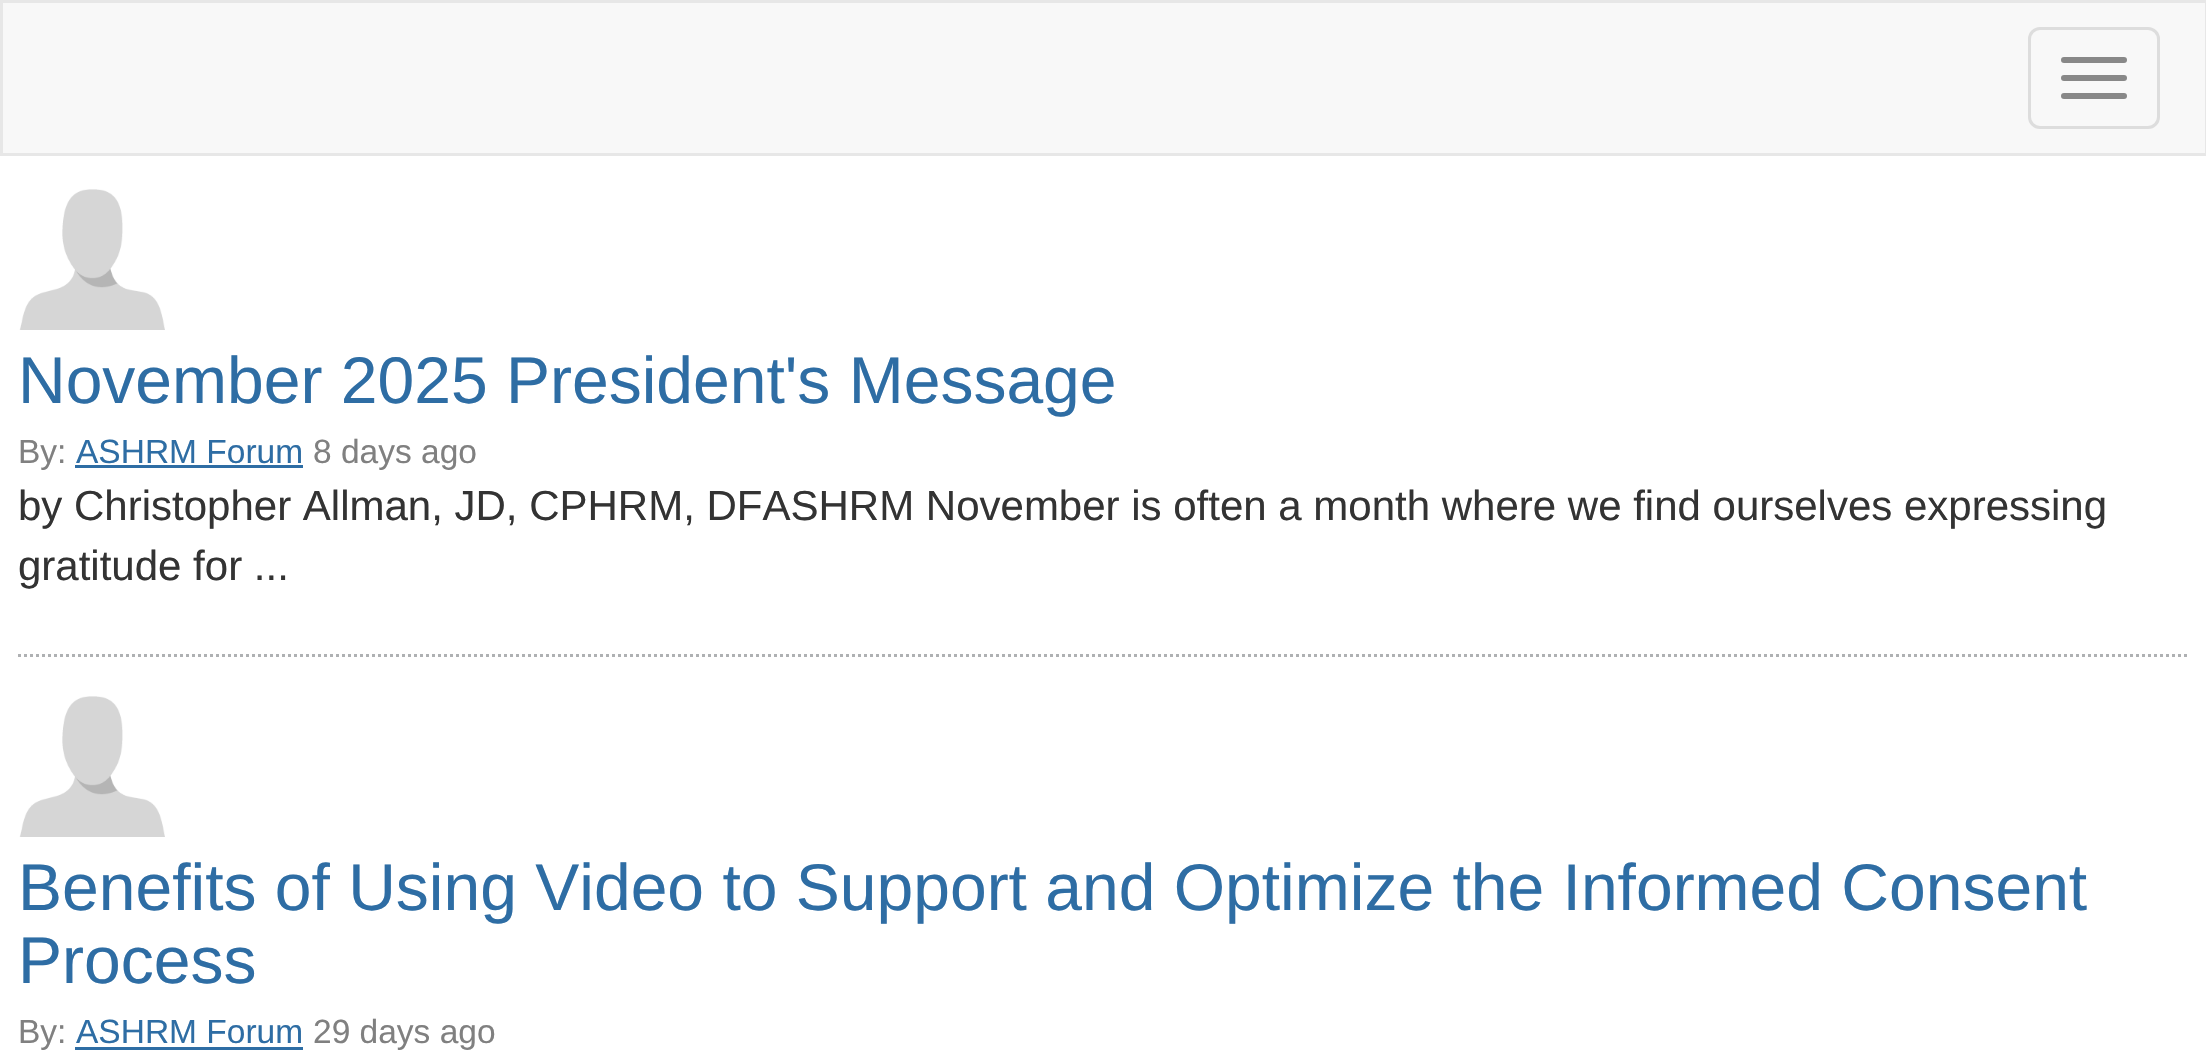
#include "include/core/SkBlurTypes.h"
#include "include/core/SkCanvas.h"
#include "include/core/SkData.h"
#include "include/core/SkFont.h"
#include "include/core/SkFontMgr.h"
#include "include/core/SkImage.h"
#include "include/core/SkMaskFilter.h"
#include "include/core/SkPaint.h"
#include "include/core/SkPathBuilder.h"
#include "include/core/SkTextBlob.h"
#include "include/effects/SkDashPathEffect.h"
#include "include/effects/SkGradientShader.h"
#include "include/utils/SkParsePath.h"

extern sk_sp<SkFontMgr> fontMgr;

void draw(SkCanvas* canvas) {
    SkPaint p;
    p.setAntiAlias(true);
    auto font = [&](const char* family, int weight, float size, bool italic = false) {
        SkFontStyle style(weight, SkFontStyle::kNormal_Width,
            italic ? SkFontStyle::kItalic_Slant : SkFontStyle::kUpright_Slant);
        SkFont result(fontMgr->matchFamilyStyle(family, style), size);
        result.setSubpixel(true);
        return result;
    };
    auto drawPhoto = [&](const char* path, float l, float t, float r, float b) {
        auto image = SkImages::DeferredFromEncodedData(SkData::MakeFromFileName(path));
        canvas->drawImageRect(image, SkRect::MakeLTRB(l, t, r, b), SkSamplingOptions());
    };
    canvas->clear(0xFFFFFFFF);
    p.setColor(0xFFF8F8F8);
    canvas->drawRect(SkRect::MakeLTRB(1.5f, 1.5f, 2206.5f, 154.5f), p);
    p.setStyle(SkPaint::kStroke_Style);
    p.setStrokeWidth(3);
    p.setColor(0xFFE7E7E7);
    canvas->drawRect(SkRect::MakeLTRB(1.5f, 1.5f, 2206.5f, 154.5f), p);
    p.setColor(0xFFDDDDDD);
    canvas->drawRoundRect(SkRect::MakeLTRB(2029.5f, 28.5f, 2158.5f, 127.5f), 10.5f, 10.5f, p);
    p.setStyle(SkPaint::kFill_Style);
    p.setColor(0xFF888888);
    canvas->drawRoundRect(SkRect::MakeLTRB(2061, 57, 2127, 63), 3, 3, p);
    canvas->drawRoundRect(SkRect::MakeLTRB(2061, 75, 2127, 81), 3, 3, p);
    canvas->drawRoundRect(SkRect::MakeLTRB(2061, 93, 2127, 99), 3, 3, p);
    p.setStyle(SkPaint::kStroke_Style);
    p.setColor(0xFFAFB1B3);
    p.setPathEffect(SkDashPathEffect::Make({{3, 3}}, 0));
    canvas->drawPath(SkPathBuilder().moveTo(18, 655.5f).lineTo(2190, 655.5f).detach(), p);
    p.setPathEffect(nullptr);
    drawPhoto("media/1.png", 19, 189, 165, 330);
    auto font1 = font("Liberation Sans", 400, 66);
    p.setStyle(SkPaint::kFill_Style);
    p.setColor(0xFF2E6DA4);
    canvas->drawString("November 2025 President's Message", 18, 403, font1, p);
    auto font2 = font("Liberation Sans", 400, 33.5f);
    p.setColor(0xFF808080);
    canvas->drawString("By:", 18, 463, font2, p);
    p.setColor(0xFF2E6DA4);
    canvas->drawString("ASHRM Forum", 76, 463, font2, p);
    canvas->drawRect(SkRect::MakeLTRB(75, 465, 303, 468), p);
    p.setColor(0xFF808080);
    canvas->drawString("8 days ago", 313, 463, font2, p);
    auto font3 = font("Liberation Sans", 400, 42);
    p.setColor(0xFF333333);
    canvas->drawString("by Christopher Allman, JD, CPHRM, DFASHRM November is often a month where we find ourselves expressing", 18, 520, font3, p);
    canvas->drawString("gratitude for ...", 18, 580, font3, p);
    drawPhoto("media/1.png", 19, 696, 165, 837);
    p.setColor(0xFF2E6DA4);
    canvas->drawString("Benefits of Using Video to Support and Optimize the Informed Consent", 18, 910, font1, p);
    canvas->drawString("Process", 18, 983, font1, p);
    p.setColor(0xFF808080);
    canvas->drawString("By:", 18, 1043, font2, p);
    p.setColor(0xFF2E6DA4);
    canvas->drawString("ASHRM Forum", 76, 1043, font2, p);
    canvas->drawRect(SkRect::MakeLTRB(75, 1047, 303, 1050), p);
    p.setColor(0xFF808080);
    canvas->drawString("29 days ago", 313, 1043, font2, p);
}
